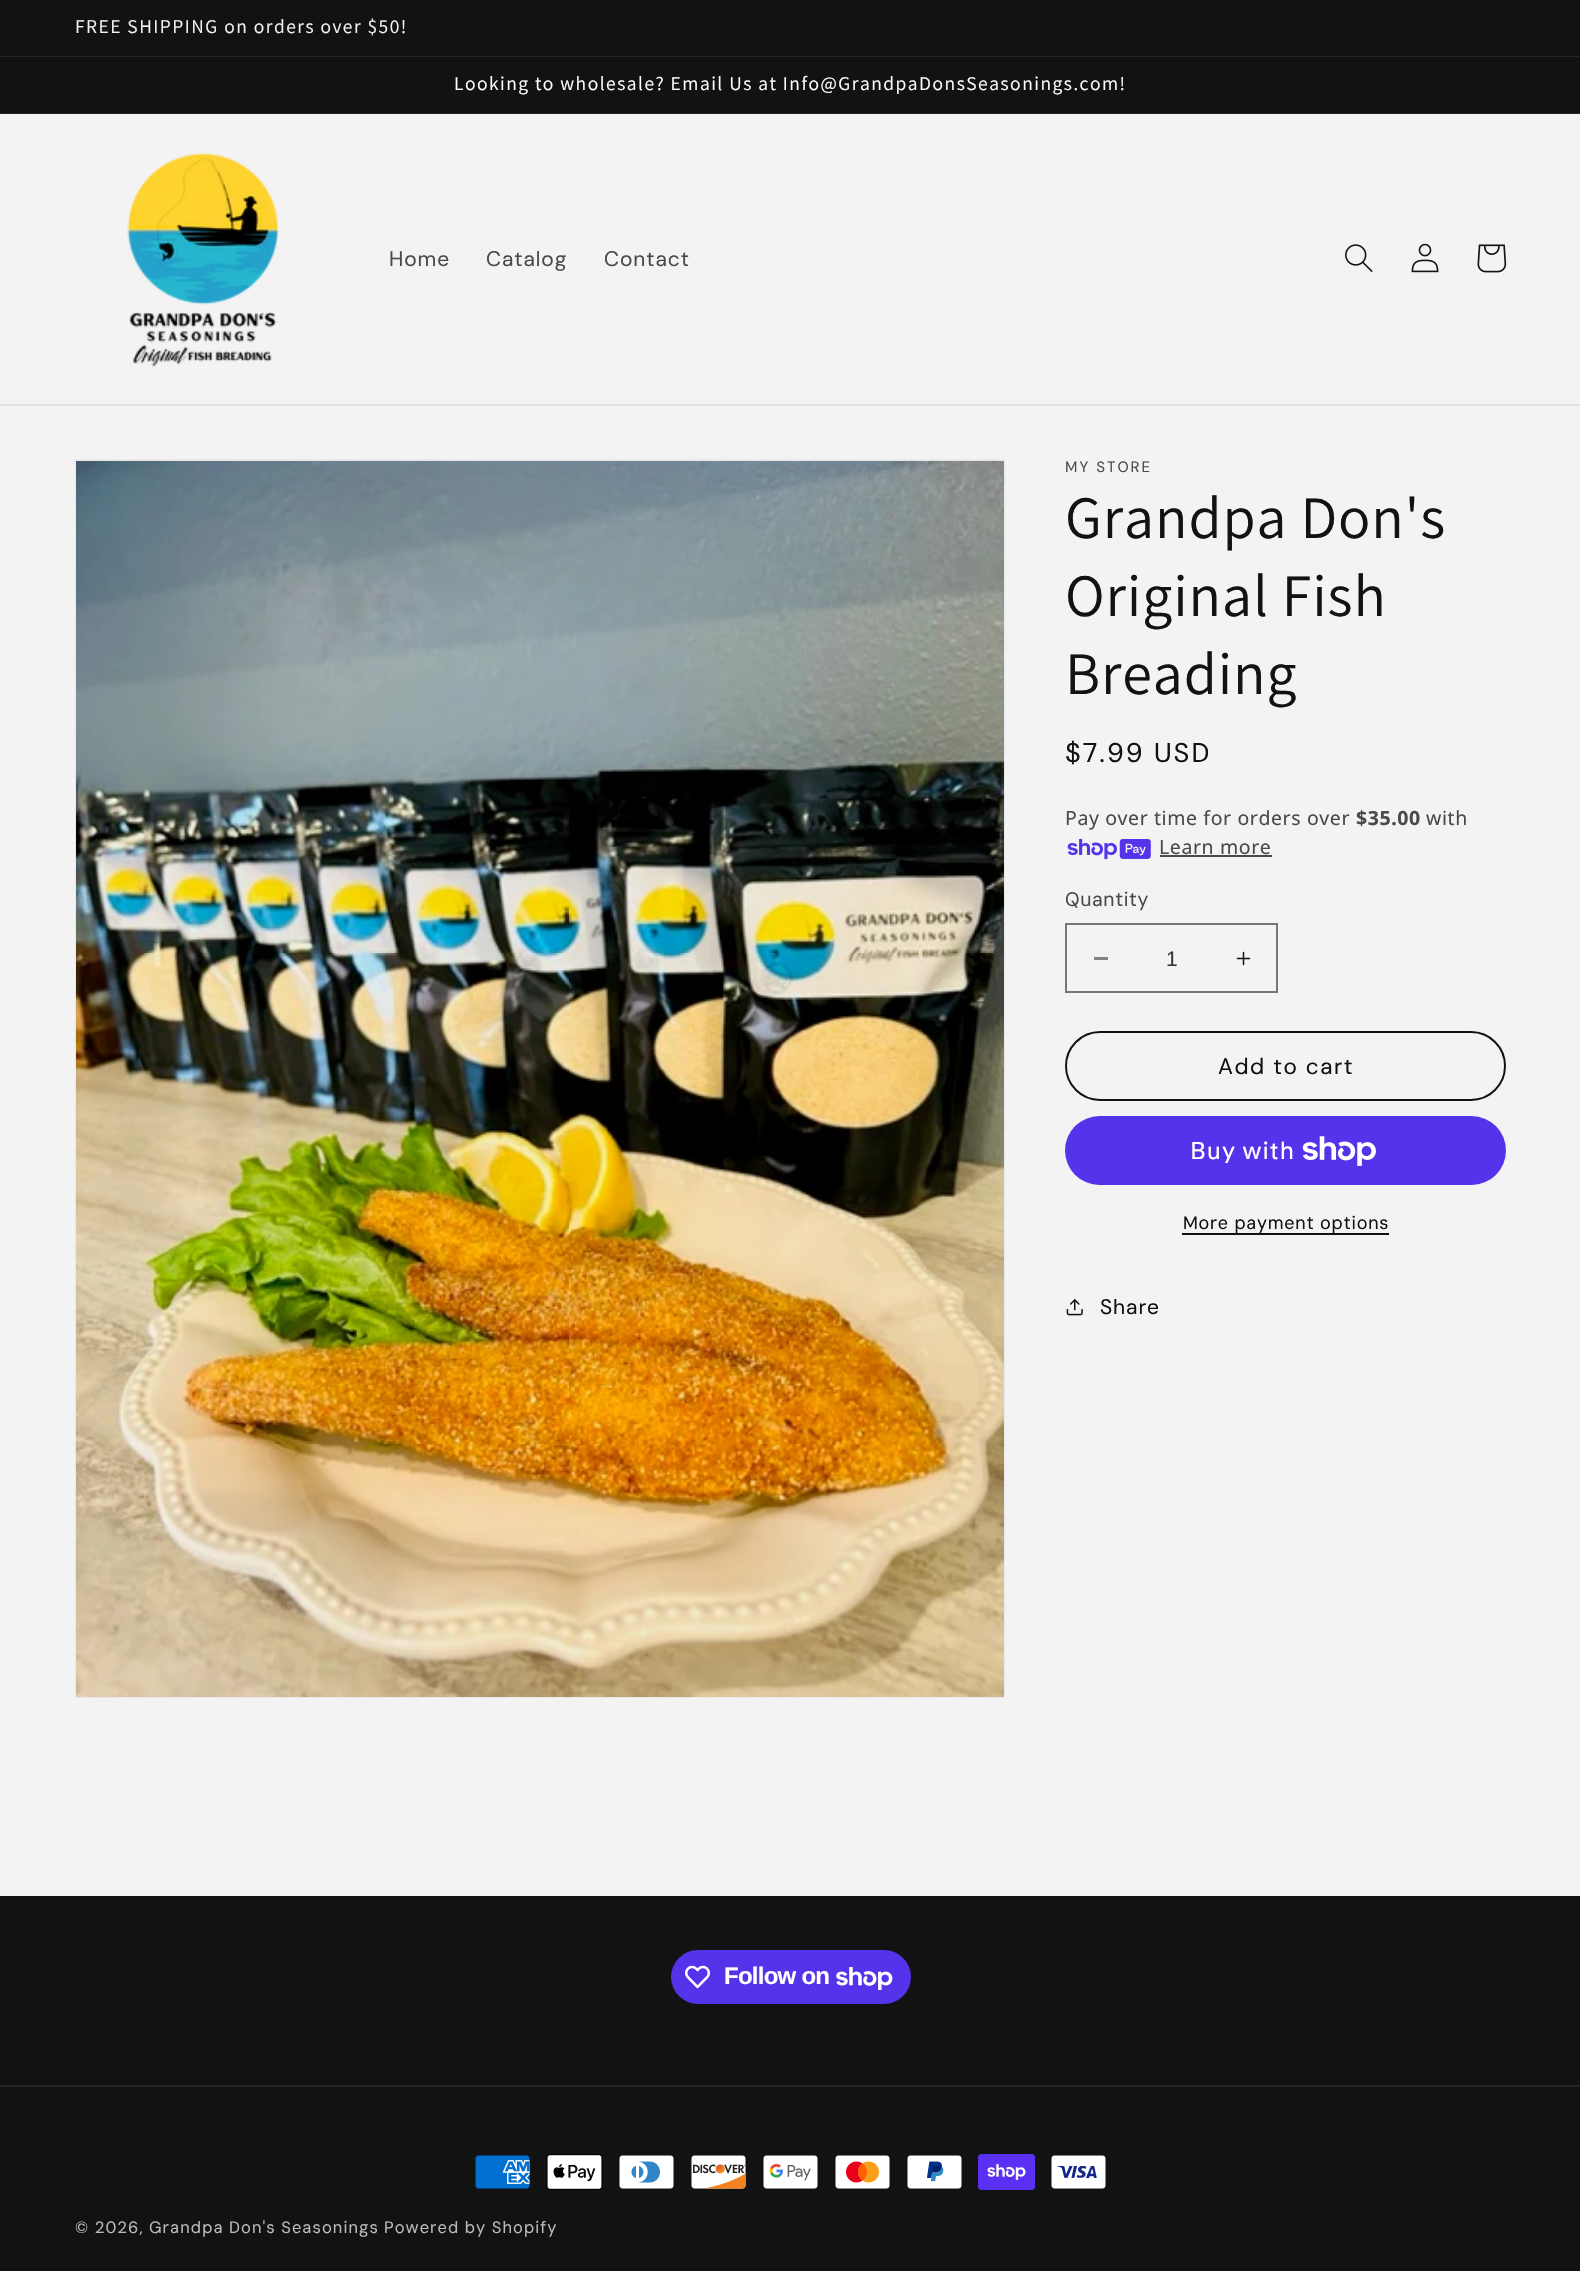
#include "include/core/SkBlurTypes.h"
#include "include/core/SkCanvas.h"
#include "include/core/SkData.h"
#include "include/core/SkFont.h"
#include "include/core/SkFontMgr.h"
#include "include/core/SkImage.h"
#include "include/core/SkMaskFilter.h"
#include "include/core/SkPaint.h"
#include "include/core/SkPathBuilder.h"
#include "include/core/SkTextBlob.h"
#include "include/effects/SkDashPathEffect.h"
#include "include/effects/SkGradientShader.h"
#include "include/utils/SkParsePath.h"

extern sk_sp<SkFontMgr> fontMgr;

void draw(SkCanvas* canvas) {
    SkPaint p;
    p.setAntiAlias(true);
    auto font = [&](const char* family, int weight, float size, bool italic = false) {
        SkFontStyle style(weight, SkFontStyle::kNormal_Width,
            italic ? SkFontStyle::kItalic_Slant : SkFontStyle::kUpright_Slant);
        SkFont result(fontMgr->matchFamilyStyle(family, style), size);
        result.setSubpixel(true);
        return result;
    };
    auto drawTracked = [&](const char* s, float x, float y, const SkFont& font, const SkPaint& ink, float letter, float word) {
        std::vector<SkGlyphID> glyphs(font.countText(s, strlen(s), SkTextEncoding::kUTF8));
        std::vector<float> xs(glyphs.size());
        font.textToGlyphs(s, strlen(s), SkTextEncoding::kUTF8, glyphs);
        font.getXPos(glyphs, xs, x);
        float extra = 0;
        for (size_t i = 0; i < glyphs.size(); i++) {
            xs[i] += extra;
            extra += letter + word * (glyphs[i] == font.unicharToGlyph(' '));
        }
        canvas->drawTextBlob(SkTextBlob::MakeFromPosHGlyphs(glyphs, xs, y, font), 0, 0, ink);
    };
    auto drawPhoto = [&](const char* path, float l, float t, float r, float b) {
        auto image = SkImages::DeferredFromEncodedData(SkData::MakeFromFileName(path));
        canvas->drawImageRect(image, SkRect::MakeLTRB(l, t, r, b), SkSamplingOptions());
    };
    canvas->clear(0xFFF3F3F3);
    p.setColor(0xFF121212);
    canvas->drawRect(SkRect::MakeLTRB(0, 0, 1580, 56), p);
    p.setColor(0xFF242424);
    canvas->drawRect(SkRect::MakeLTRB(0, 56, 1580, 57), p);
    auto font1 = font("Assistant", 400, 19.5f);
    p.setColor(0xFFF3F3F3);
    drawTracked("FREE SHIPPING on orders over $50!", 75, 33, font1, p, 1.5f, 0);
    p.setColor(0xFF121212);
    canvas->drawRect(SkRect::MakeLTRB(0, 57, 1580, 113), p);
    p.setColor(0xFF252525);
    canvas->drawRect(SkRect::MakeLTRB(0, 113, 1580, 114), p);
    p.setColor(0xFFFFFFFF);
    drawTracked("Looking to wholesale? Email Us at Info@GrandpaDonsSeasonings.com!", 454, 90, font1, p, 1.5f, 0);
    p.setColor(0xFFE1E1E1);
    canvas->drawRect(SkRect::MakeLTRB(0, 404, 1580, 406), p);
    drawPhoto("media/1.png", 127, 152, 279, 367);
    auto font2 = font("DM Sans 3", 400, 21);
    p.setColor(0xFF4A4A4A);
    {
        const struct { const char* s; float x, y; } items[] = {
            {"Home", 389, 266},
            {"Catalog", 486, 266},
            {"Contact", 604, 266},
        };
        for (auto [s, x, y] : items) {
            drawTracked(s, x, y, font2, p, 0.9f, 0);
        }
    }
    drawPhoto("media/2.png", 1345, 244, 1373, 272);
    drawPhoto("media/3.png", 1411, 243, 1439, 273);
    drawPhoto("media/4.png", 1477, 244, 1507, 273);
    p.setStyle(SkPaint::kStroke_Style);
    p.setStrokeWidth(2);
    p.setColor(0xFFE8E8E8);
    canvas->drawRect(SkRect::MakeLTRB(76, 460, 1004, 1697), p);
    drawPhoto("media/5.png", 76, 461, 1004, 1697);
    auto font3 = font("DM Sans", 400, 15);
    p.setStyle(SkPaint::kFill_Style);
    p.setColor(0xFF4A4A4A);
    drawTracked("MY STORE", 1065, 472, font3, p, 2, 0);
    auto font4 = font("Assistant", 400, 60);
    p.setColor(0xFF121212);
    {
        const struct { const char* s; float x, y; } items[] = {
            {"Grandpa Don's", 1065, 538},
            {"Original Fish", 1065, 616},
            {"Breading", 1065, 694},
        };
        for (auto [s, x, y] : items) {
            drawTracked(s, x, y, font4, p, 0.9f, 0);
        }
    }
    auto font5 = font("DM Sans", 400, 27);
    drawTracked("$7.99 USD", 1065, 762, font5, p, 2, 0);
    auto font6 = font("Noto Sans", 400, 19.5f);
    p.setColor(0xFF4A4A4A);
    drawTracked("Pay over time for orders over", 1065, 825, font6, p, 0.6f, 0);
    auto font7 = font("Noto Sans", 700, 19.5f);
    drawTracked("$35.00", 1356, 825, font7, p, 0.6f, 0);
    drawTracked("with", 1426, 825, font6, p, 0.6f, 0);
    drawPhoto("media/6.png", 1067, 839, 1151, 860);
    drawTracked("Learn more", 1159, 854, font6, p, 0.6f, 0);
    canvas->drawRect(SkRect::MakeLTRB(1160, 855, 1272, 857), p);
    auto font8 = font("DM Sans", 400, 19.5f);
    drawTracked("Quantity", 1065, 906, font8, p, 0.6f, 0);
    p.setColor(0xFF838383);
    canvas->drawRect(SkRect::MakeLTRB(1094, 957, 1108, 960), p);
    drawPhoto("media/7.png", 1236, 951, 1251, 966);
    p.setStyle(SkPaint::kStroke_Style);
    p.setColor(0xFF777777);
    canvas->drawRect(SkRect::MakeLTRB(1066, 924, 1277, 992), p);
    auto font9 = font("Liberation Sans", 400, 21);
    p.setStyle(SkPaint::kFill_Style);
    p.setColor(0xFF343434);
    canvas->drawString("1", 1166, 966, font9, p);
    p.setStyle(SkPaint::kStroke_Style);
    p.setColor(0xFF121212);
    canvas->drawRoundRect(SkRect::MakeLTRB(1066, 1032, 1505, 1100), 34, 34, p);
    auto font10 = font("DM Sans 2", 400, 22.5f);
    p.setStyle(SkPaint::kFill_Style);
    drawTracked("Add to cart", 1218, 1074, font10, p, 1.5f, 0);
    p.setColor(0xFF5433EB);
    canvas->drawRoundRect(SkRect::MakeLTRB(1065, 1116, 1506, 1185), 34.5f, 34.5f, p);
    auto font11 = font("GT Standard", 400, 24);
    p.setColor(0xFFFFFFFF);
    drawTracked("Buy with", 1190, 1159, font11, p, 0.9f, 0);
    drawPhoto("media/8.png", 1302, 1136, 1376, 1166);
    auto font12 = font("DM Sans", 400, 18);
    p.setColor(0xFF121212);
    drawTracked("More payment options", 1183, 1229, font12, p, 0.75f, 0);
    canvas->drawRect(SkRect::MakeLTRB(1182, 1233, 1389, 1235), p);
    drawPhoto("media/9.png", 1066, 1299, 1083, 1316);
    drawTracked("Share", 1100, 1314, font2, p, 0.9f, 0);
    canvas->drawRect(SkRect::MakeLTRB(0, 1896, 1580, 2271), p);
    p.setColor(0xFF5433EB);
    canvas->drawRoundRect(SkRect::MakeLTRB(671, 1950, 911, 2004), 27, 27, p);
    drawPhoto("media/10.png", 685, 1965, 710, 1989);
    auto font13 = font("Liberation Sans", 700, 24);
    p.setColor(0xFFFFFFFF);
    drawTracked("Follow on", 724, 1984, font13, p, -0.75f, 0);
    drawPhoto("media/11.png", 836, 1967, 893, 1990);
    p.setColor(0xFF242424);
    canvas->drawRect(SkRect::MakeLTRB(0, 2085, 1580, 2087), p);
    drawPhoto("media/12.png", 475, 2155, 530, 2189);
    drawPhoto("media/13.png", 546, 2154, 603, 2190);
    drawPhoto("media/14.png", 619, 2155, 674, 2189);
    drawPhoto("media/15.png", 691, 2155, 746, 2189);
    drawPhoto("media/16.png", 763, 2155, 818, 2189);
    drawPhoto("media/17.png", 835, 2155, 890, 2189);
    drawPhoto("media/18.png", 907, 2155, 962, 2189);
    drawPhoto("media/19.png", 978, 2154, 1035, 2190);
    drawPhoto("media/20.png", 1051, 2155, 1106, 2189);
    auto font14 = font("DM Sans", 400, 16.5f);
    p.setColor(0xFFBBBBBB);
    {
        const struct { const char* s; float x, y; } items[] = {
            {"© 2026,", 75, 2233},
            {"Grandpa Don's Seasonings", 149, 2233},
            {"Powered by Shopify", 384, 2233},
        };
        for (auto [s, x, y] : items) {
            drawTracked(s, x, y, font14, p, 1.05f, 0);
        }
    }
}
